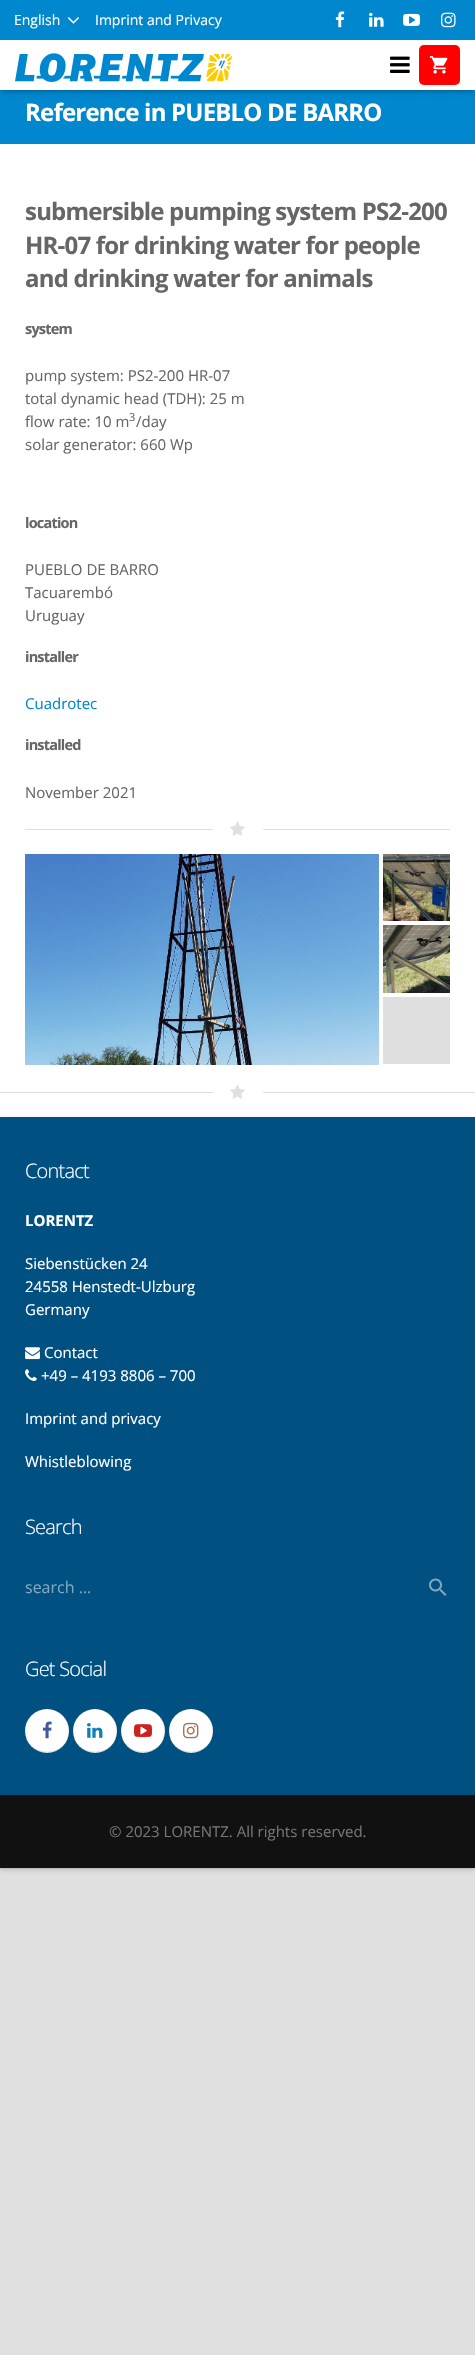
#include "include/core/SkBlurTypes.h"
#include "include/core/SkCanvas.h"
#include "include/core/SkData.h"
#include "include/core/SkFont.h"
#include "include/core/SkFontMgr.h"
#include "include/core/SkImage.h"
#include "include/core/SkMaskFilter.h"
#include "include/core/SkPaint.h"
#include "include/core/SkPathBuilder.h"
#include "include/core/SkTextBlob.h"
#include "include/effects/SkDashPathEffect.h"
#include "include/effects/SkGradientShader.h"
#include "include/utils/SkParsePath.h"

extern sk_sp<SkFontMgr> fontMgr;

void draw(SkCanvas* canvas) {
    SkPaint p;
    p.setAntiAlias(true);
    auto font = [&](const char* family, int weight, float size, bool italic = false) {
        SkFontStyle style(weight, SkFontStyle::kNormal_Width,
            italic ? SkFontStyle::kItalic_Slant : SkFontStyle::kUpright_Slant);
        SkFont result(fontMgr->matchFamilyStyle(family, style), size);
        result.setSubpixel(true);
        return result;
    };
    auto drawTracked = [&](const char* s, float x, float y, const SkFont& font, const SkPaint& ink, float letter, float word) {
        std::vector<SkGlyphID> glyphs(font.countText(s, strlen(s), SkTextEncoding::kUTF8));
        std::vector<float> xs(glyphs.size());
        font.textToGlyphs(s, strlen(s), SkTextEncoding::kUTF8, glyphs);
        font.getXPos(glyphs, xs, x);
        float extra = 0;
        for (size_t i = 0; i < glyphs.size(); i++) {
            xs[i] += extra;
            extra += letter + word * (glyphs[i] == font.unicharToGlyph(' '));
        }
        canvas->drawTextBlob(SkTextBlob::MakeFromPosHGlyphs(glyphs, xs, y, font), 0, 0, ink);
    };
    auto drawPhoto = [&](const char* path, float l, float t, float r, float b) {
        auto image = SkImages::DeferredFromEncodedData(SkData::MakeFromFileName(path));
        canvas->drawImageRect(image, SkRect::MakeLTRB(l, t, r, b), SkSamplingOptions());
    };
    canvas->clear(0xFFE0E0E0);
    p.setColor(0xFFFFFFFF);
    canvas->drawRect(SkRect::MakeLTRB(0, 144, 475, 1117), p);
    p.setColor(0xFF0087CE);
    canvas->drawRect(SkRect::MakeLTRB(0, 0, 475, 40), p);
    auto font1 = font("Open Sans", 400, 14);
    p.setColor(0xFFFFFFFF);
    canvas->drawString("English", 14, 25, font1, p);
    drawPhoto("media/1.png", 67, 17, 79, 24);
    canvas->drawString("Imprint and Privacy", 95, 25, font1, p);
    drawPhoto("media/2.png", 335, 11, 345, 28);
    drawPhoto("media/3.png", 369, 12, 384, 27);
    drawPhoto("media/4.png", 403, 13, 420, 26);
    drawPhoto("media/5.png", 441, 12, 456, 28);
    p.setColor(0xFF0087CE);
    canvas->drawRect(SkRect::MakeLTRB(0, 90, 475, 144), p);
    p.setColor(0x0D000000);
    p.setMaskFilter(SkMaskFilter::MakeBlur(kNormal_SkBlurStyle, 0.5f));
    canvas->drawRect(SkRect::MakeLTRB(1, 43, 474, 91), p);
    p.setMaskFilter(nullptr);
    p.setColor(0x38000000);
    p.setMaskFilter(SkMaskFilter::MakeBlur(kNormal_SkBlurStyle, 2.5f));
    canvas->drawRect(SkRect::MakeLTRB(2, 46, 473, 92), p);
    p.setMaskFilter(nullptr);
    p.setColor(0xFFFFFFFF);
    canvas->drawRect(SkRect::MakeLTRB(0, 40, 475, 90), p);
    drawPhoto("media/6.png", 15, 53, 225, 82);
    drawPhoto("media/7.png", 206, 54, 232, 82);
    drawPhoto("media/8.png", 390, 56, 410, 73);
    p.setColor(0xFFFF0000);
    canvas->drawRoundRect(SkRect::MakeLTRB(419, 45, 460, 85), 5, 5, p);
    drawPhoto("media/9.png", 429, 56, 448, 74);
    auto font2 = font("Open Sans", 700, 24);
    p.setColor(0xFFFFFFFF);
    drawTracked("Reference in PUEBLO DE BARRO", 25, 121, font2, p, -0.8f, 0);
    p.setColor(0xFF666666);
    {
        const struct { const char* s; float x, y; } items[] = {
            {"submersible pumping system PS2-200", 25, 220},
            {"HR-07 for drinking water for people", 25, 254},
            {"and drinking water for animals", 25, 287},
        };
        for (auto [s, x, y] : items) {
            drawTracked(s, x, y, font2, p, -0.8f, 0);
        }
    }
    auto font3 = font("Open Sans", 700, 14.5f);
    drawTracked("system", 25, 334, font3, p, -0.8f, 0);
    auto font4 = font("Open Sans", 400, 15);
    {
        const struct { const char* s; float x, y; } items[] = {
            {"pump system: PS2-200 HR-07", 25, 381},
            {"total dynamic head (TDH): 25 m", 25, 404},
            {"flow rate: 10 m", 25, 427},
        };
        for (auto [s, x, y] : items) {
            canvas->drawString(s, x, y, font4, p);
        }
    }
    auto font5 = font("Open Sans", 400, 11);
    canvas->drawString("3", 129, 421, font5, p);
    canvas->drawString("/day", 136, 427, font4, p);
    canvas->drawString("solar generator: 660 Wp", 25, 450, font4, p);
    drawTracked("location", 25, 528, font3, p, -0.8f, 0);
    {
        const struct { const char* s; float x, y; } items[] = {
            {"PUEBLO DE BARRO", 25, 575},
            {"Tacuarembó", 25, 598},
            {"Uruguay", 25, 621},
        };
        for (auto [s, x, y] : items) {
            canvas->drawString(s, x, y, font4, p);
        }
    }
    drawTracked("installer", 25, 662, font3, p, -0.8f, 0);
    p.setColor(0xFF0087CE);
    canvas->drawString("Cuadrotec", 25, 709, font4, p);
    p.setColor(0xFF666666);
    drawTracked("installed", 25, 750, font3, p, -0.8f, 0);
    canvas->drawString("November 2021", 25, 798, font4, p);
    p.setColor(0xFFE0E0E0);
    canvas->drawRect(SkRect::MakeLTRB(25, 829, 213, 830), p);
    drawPhoto("media/10.png", 230, 821, 245, 836);
    canvas->drawRect(SkRect::MakeLTRB(263, 829, 450, 830), p);
    drawPhoto("media/11.png", 25, 854, 379, 1065);
    drawPhoto("media/12.png", 383, 854, 450, 921);
    drawPhoto("media/13.png", 383, 925, 450, 993);
    p.setColor(0xFFDFDFDF);
    canvas->drawRect(SkRect::MakeLTRB(383, 997, 450, 1064), p);
    p.setColor(0xFFE0E0E0);
    canvas->drawRect(SkRect::MakeLTRB(0, 1092, 213, 1093), p);
    drawPhoto("media/10.png", 230, 1084, 245, 1099);
    canvas->drawRect(SkRect::MakeLTRB(263, 1092, 475, 1093), p);
    p.setColor(0x26000000);
    p.setMaskFilter(SkMaskFilter::MakeBlur(kNormal_SkBlurStyle, 2.5f));
    canvas->drawRect(SkRect::MakeLTRB(0, 1119, 475, 1797), p);
    p.setMaskFilter(nullptr);
    p.setColor(0xFF005082);
    canvas->drawRect(SkRect::MakeLTRB(0, 1117, 475, 1795), p);
    auto font6 = font("Open Sans", 300, 20);
    p.setColor(0xFFFFFFFF);
    drawTracked("Contact", 25, 1178, font6, p, -0.8f, 0);
    auto font7 = font("Open Sans", 700, 15);
    canvas->drawString("LORENTZ", 25, 1226, font7, p);
    {
        const struct { const char* s; float x, y; } items[] = {
            {"Siebenstücken 24", 25, 1269},
            {"24558 Henstedt-Ulzburg", 25, 1292},
            {"Germany", 25, 1315},
        };
        for (auto [s, x, y] : items) {
            canvas->drawString(s, x, y, font4, p);
        }
    }
    drawPhoto("media/14.png", 25, 1347, 40, 1360);
    canvas->drawString("Contact", 44, 1358, font4, p);
    drawPhoto("media/15.png", 25, 1369, 37, 1381);
    {
        const struct { const char* s; float x, y; } items[] = {
            {"+49 – 4193 8806 – 700", 41, 1381},
            {"Imprint and privacy", 25, 1424},
            {"Whistleblowing", 25, 1467},
        };
        for (auto [s, x, y] : items) {
            canvas->drawString(s, x, y, font4, p);
        }
    }
    drawTracked("Search", 25, 1534, font6, p, -0.8f, 0);
    auto font8 = font("Open Sans", 400, 16);
    p.setColor(0xFF80A8C1);
    canvas->drawString("search ...", 25, 1593, font8, p);
    drawPhoto("media/16.png", 429, 1578, 447, 1596);
    p.setColor(0xFFFFFFFF);
    drawTracked("Get Social", 25, 1676, font6, p, -0.8f, 0);
    canvas->drawCircle(47, 1731, 22, p);
    p.setColor(0x1F000000);
    canvas->drawPath(SkPathBuilder().moveTo(26, 1726).cubicTo(24, 1732, 25, 1738, 29, 1743).cubicTo(42, 1764, 74, 1749, 68, 1726).cubicTo(74, 1760, 20, 1760, 26, 1726).close().detach(), p);
    drawPhoto("media/17.png", 42, 1721, 52, 1739);
    p.setColor(0xFFFFFFFF);
    canvas->drawCircle(95, 1731, 22, p);
    p.setColor(0x1F000000);
    canvas->drawPath(SkPathBuilder().moveTo(74, 1726).cubicTo(72, 1732, 73, 1738, 77, 1743).cubicTo(90, 1764, 122, 1749, 116, 1726).cubicTo(122, 1760, 68, 1760, 74, 1726).close().detach(), p);
    drawPhoto("media/18.png", 87, 1723, 103, 1738);
    p.setColor(0xFFFFFFFF);
    canvas->drawCircle(143, 1731, 22, p);
    p.setColor(0x1F000000);
    canvas->drawPath(SkPathBuilder().moveTo(122, 1726).cubicTo(116, 1749, 148, 1764, 161, 1743).cubicTo(165, 1738, 166, 1732, 164, 1726).cubicTo(170, 1760, 116, 1760, 122, 1726).close().detach(), p);
    drawPhoto("media/19.png", 134, 1724, 152, 1737);
    p.setColor(0xFFFFFFFF);
    canvas->drawCircle(191, 1731, 22, p);
    p.setColor(0x1F000000);
    canvas->drawPath(SkPathBuilder().moveTo(170, 1726).cubicTo(168, 1732, 169, 1738, 173, 1743).cubicTo(186, 1764, 218, 1749, 212, 1726).cubicTo(218, 1760, 164, 1760, 170, 1726).close().detach(), p);
    drawPhoto("media/20.png", 183, 1722, 199, 1739);
    p.setColor(0x26000000);
    p.setMaskFilter(SkMaskFilter::MakeBlur(kNormal_SkBlurStyle, 2.5f));
    canvas->drawRect(SkRect::MakeLTRB(0, 1797, 475, 1870), p);
    p.setMaskFilter(nullptr);
    p.setColor(0x0D000000);
    p.setMaskFilter(SkMaskFilter::MakeBlur(kNormal_SkBlurStyle, 0.5f));
    canvas->drawRect(SkRect::MakeLTRB(0, 1796, 475, 1869), p);
    p.setMaskFilter(nullptr);
    p.setColor(0xFF111111);
    canvas->drawRect(SkRect::MakeLTRB(0, 1795, 475, 1868), p);
    p.setColor(0xFF757575);
    canvas->drawString("© 2023 LORENTZ. All rights reserved.", 109, 1837, font4, p);
}
